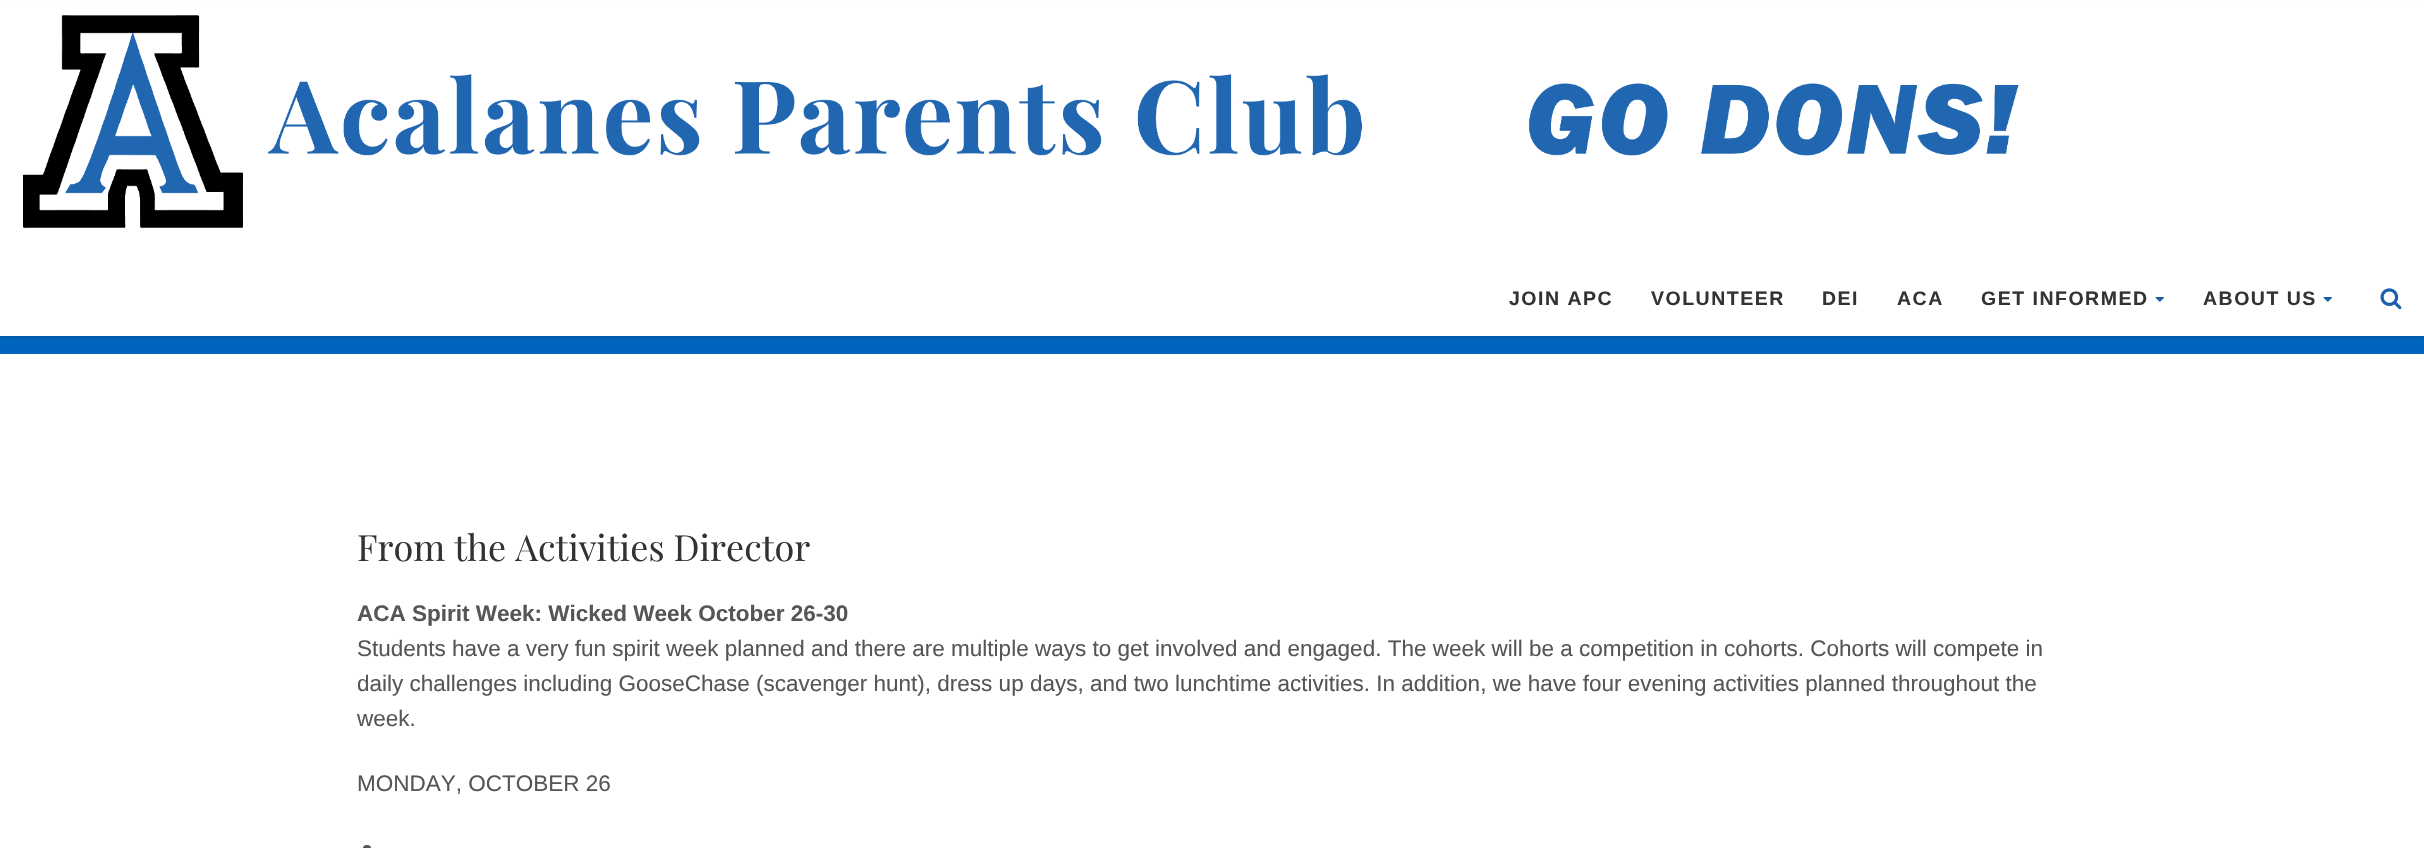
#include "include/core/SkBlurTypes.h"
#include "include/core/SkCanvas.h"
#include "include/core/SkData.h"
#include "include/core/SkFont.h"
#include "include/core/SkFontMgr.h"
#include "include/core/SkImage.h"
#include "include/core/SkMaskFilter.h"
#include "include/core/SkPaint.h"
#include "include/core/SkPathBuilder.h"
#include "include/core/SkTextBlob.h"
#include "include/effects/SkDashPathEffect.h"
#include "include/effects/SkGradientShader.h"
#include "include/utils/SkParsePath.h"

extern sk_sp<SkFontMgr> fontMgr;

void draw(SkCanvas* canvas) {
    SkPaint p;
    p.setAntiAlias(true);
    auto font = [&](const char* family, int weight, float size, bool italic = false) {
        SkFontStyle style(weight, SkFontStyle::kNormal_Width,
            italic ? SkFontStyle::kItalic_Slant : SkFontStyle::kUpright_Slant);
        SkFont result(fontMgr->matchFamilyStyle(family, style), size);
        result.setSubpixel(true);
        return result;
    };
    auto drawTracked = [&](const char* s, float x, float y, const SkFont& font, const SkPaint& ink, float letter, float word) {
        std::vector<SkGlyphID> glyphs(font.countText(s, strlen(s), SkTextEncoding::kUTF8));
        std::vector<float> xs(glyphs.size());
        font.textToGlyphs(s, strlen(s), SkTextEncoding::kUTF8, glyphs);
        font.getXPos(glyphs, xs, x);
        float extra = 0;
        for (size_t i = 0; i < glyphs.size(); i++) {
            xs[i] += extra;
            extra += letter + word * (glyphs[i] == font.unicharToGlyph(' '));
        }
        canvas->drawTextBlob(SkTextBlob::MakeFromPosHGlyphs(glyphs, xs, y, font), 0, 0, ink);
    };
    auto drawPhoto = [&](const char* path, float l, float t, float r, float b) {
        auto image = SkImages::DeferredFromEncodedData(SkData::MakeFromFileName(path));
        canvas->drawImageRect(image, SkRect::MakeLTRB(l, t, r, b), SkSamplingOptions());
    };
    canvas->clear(0xFFFFFFFF);
    p.setColor(0xFF0065BD);
    canvas->drawRect(SkRect::MakeLTRB(0, 336, 2424, 354), p);
    p.setColor(0x1A000000);
    p.setMaskFilter(SkMaskFilter::MakeBlur(kNormal_SkBlurStyle, 1));
    canvas->drawRect(SkRect::MakeLTRB(0, 2, 2424, 338), p);
    p.setMaskFilter(nullptr);
    p.setColor(0xFFFFFFFF);
    canvas->drawRect(SkRect::MakeLTRB(0, 1, 2424, 336), p);
    drawPhoto("media/1.png", 23, 15, 2019, 228);
    auto font1 = font("Liberation Sans", 700, 19.5f);
    p.setColor(0xFF333333);
    {
        const struct { const char* s; float x, y; } items[] = {
            {"JOIN APC", 1509, 305},
            {"VOLUNTEER", 1651, 305},
            {"DEI", 1822, 305},
            {"ACA", 1897, 305},
            {"GET INFORMED", 1981, 305},
        };
        for (auto [s, x, y] : items) {
            drawTracked(s, x, y, font1, p, 1.5f, 0);
        }
    }
    drawPhoto("media/2.png", 2155, 297, 2164, 302);
    drawTracked("ABOUT US", 2203, 305, font1, p, 1.5f, 0);
    drawPhoto("media/2.png", 2323, 297, 2332, 302);
    drawPhoto("media/3.png", 2380, 288, 2402, 310);
    auto font2 = font("Playfair Display", 400, 36);
    canvas->drawString("From the Activities Director", 357, 561, font2, p);
    auto font3 = font("Liberation Sans", 700, 22.5f);
    p.setColor(0xFF565656);
    canvas->drawString("ACA Spirit Week: Wicked Week October 26-30", 357, 621, font3, p);
    auto font4 = font("Liberation Sans", 400, 22.5f);
    {
        const struct { const char* s; float x, y; } items[] = {
            {"Students have a very fun spirit week planned and there are multiple ways to get involved and engaged. The week will be a competition in cohorts. Cohorts will compete in", 357, 656},
            {"daily challenges including GooseChase (scavenger hunt), dress up days, and two lunchtime activities. In addition, we have four evening activities planned throughout the", 357, 691},
            {"week.", 357, 726},
            {"MONDAY, OCTOBER 26", 357, 791},
        };
        for (auto [s, x, y] : items) {
            canvas->drawString(s, x, y, font4, p);
        }
    }
    canvas->drawRoundRect(SkRect::MakeLTRB(363, 845, 371, 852), 3.5f, 3.5f, p);
}
